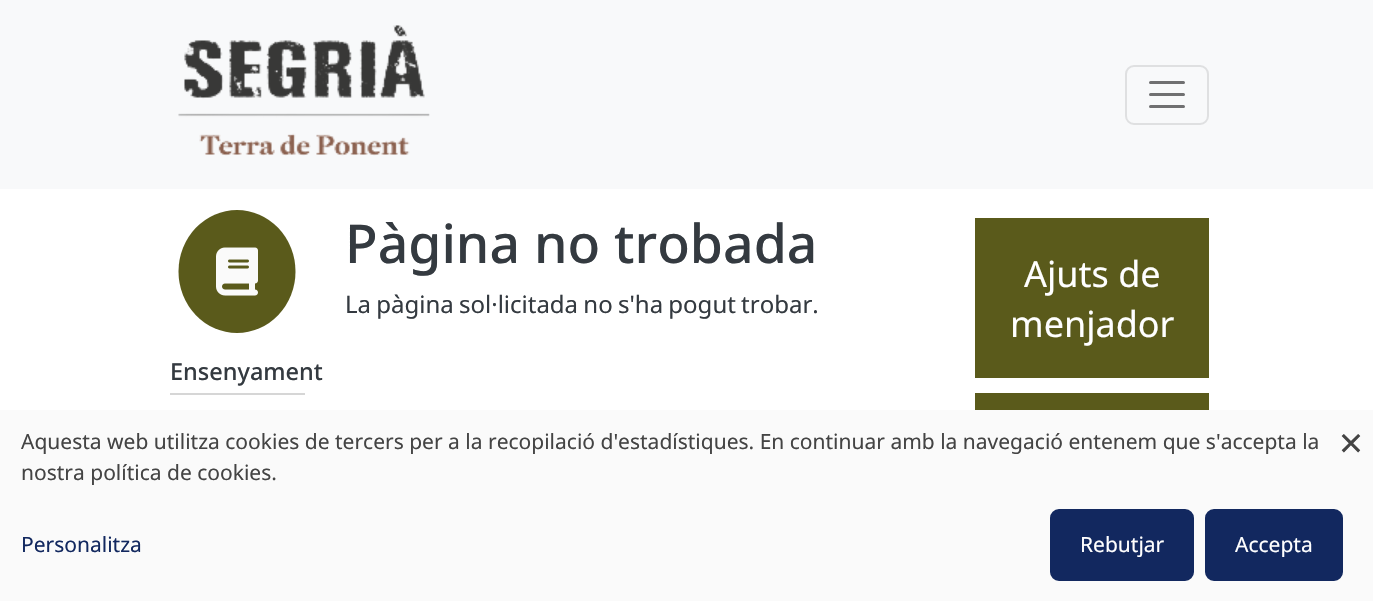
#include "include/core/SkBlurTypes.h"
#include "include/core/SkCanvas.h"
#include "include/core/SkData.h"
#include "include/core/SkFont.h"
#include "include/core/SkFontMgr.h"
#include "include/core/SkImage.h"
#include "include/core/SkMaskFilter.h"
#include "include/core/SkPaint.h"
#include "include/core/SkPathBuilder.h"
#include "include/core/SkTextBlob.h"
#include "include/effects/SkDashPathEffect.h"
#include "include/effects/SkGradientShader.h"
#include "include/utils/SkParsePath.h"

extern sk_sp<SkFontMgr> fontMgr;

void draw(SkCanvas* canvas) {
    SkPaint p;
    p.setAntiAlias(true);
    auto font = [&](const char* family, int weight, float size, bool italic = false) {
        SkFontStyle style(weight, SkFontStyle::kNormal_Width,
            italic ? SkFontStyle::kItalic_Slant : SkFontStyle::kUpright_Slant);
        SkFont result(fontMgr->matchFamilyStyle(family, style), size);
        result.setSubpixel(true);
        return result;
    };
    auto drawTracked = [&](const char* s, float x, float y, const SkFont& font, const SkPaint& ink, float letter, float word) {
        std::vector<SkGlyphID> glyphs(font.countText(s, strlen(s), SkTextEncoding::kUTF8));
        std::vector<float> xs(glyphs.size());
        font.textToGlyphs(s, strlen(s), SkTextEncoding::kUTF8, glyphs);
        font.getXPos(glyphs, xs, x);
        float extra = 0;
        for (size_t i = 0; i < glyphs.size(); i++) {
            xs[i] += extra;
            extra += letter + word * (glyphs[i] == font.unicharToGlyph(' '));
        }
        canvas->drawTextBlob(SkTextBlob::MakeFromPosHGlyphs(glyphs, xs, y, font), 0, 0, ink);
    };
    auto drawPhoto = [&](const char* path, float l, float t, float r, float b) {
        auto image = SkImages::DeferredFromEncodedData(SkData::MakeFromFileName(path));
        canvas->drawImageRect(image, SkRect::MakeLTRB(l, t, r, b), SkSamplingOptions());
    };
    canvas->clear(0xFFFFFFFF);
    p.setColor(0xFFF8F9FA);
    canvas->drawRect(SkRect::MakeLTRB(0, 0, 1373, 189), p);
    drawPhoto("media/1.png", 178, 25, 430, 156);
    p.setStyle(SkPaint::kStroke_Style);
    p.setStrokeWidth(2);
    p.setColor(0xFFDFE0E1);
    canvas->drawRoundRect(SkRect::MakeLTRB(1126, 66, 1208, 124), 8, 8, p);
    p.setStrokeWidth(3);
    p.setStrokeCap(SkPaint::kRound_Cap);
    p.setColor(0xFF707071);
    canvas->drawPath(SkPathBuilder().moveTo(1150.5f, 82.5f).lineTo(1183.5f, 82.5f).moveTo(1150.5f, 94.5f).lineTo(1183.5f, 94.5f).moveTo(1150.5f, 106.5f).lineTo(1183.5f, 106.5f).detach(), p);
    auto font1 = font("Noto Sans", 500, 53.5f);
    p.setStyle(SkPaint::kFill_Style);
    p.setColor(0xFF343A40);
    canvas->drawString("Pàgina no trobada", 345, 263, font1, p);
    auto font2 = font("Noto Sans", 400, 24);
    drawTracked("La pàgina sol·licitada no s'ha pogut trobar.", 345, 313, font2, p, 0, -1);
    p.setColor(0xFF5A5A1B);
    canvas->drawRect(SkRect::MakeLTRB(975, 218, 1209, 378), p);
    auto font3 = font("Noto Sans", 400, 36);
    p.setColor(0xFFFFFFFF);
    canvas->drawString("Ajuts de", 1024, 287, font3, p);
    canvas->drawString("menjador", 1010, 337, font3, p);
    p.setColor(0xFF5A5A1B);
    canvas->drawRect(SkRect::MakeLTRB(975, 393, 1209, 410), p);
    canvas->drawOval(SkRect::MakeLTRB(178.5f, 210, 295.5f, 333), p);
    drawPhoto("media/2.png", 216, 247, 258, 296);
    p.setColor(0xFFD6D6D6);
    canvas->drawRect(SkRect::MakeLTRB(170, 393, 305, 395), p);
    auto font4 = font("Noto Sans", 500, 23.5f);
    p.setColor(0xFF343A40);
    canvas->drawString("Ensenyament", 170, 380, font4, p);
    p.setColor(0xFFFAFAFA);
    canvas->drawRect(SkRect::MakeLTRB(0, 410, 1373, 601), p);
    auto font5 = font("Noto Sans", 400, 21);
    p.setColor(0xFF444444);
    canvas->drawString("Aquesta web utilitza cookies de tercers per a la recopilació d'estadístiques. En continuar amb la navegació entenem que s'accepta la", 21, 449, font5, p);
    canvas->drawString("nostra política de cookies.", 21, 480, font5, p);
    p.setColor(0xFF12285F);
    canvas->drawString("Personalitza", 21, 552, font5, p);
    canvas->drawRoundRect(SkRect::MakeLTRB(1052.5f, 511.5f, 1191.5f, 578.5f), 6.5f, 6.5f, p);
    p.setStyle(SkPaint::kStroke_Style);
    p.setStrokeWidth(5);
    p.setStrokeCap(SkPaint::kButt_Cap);
    canvas->drawRoundRect(SkRect::MakeLTRB(1052.5f, 511.5f, 1191.5f, 578.5f), 6.5f, 6.5f, p);
    p.setStyle(SkPaint::kFill_Style);
    p.setColor(0xFFFFFFFF);
    canvas->drawString("Rebutjar", 1080, 552, font5, p);
    p.setColor(0xFF12285F);
    canvas->drawRoundRect(SkRect::MakeLTRB(1207.5f, 511.5f, 1340.5f, 578.5f), 6.5f, 6.5f, p);
    p.setStyle(SkPaint::kStroke_Style);
    canvas->drawRoundRect(SkRect::MakeLTRB(1207.5f, 511.5f, 1340.5f, 578.5f), 6.5f, 6.5f, p);
    p.setStyle(SkPaint::kFill_Style);
    p.setColor(0xFFFFFFFF);
    canvas->drawString("Accepta", 1235, 552, font5, p);
    auto font6 = font("Noto Sans", 400, 42);
    p.setColor(0xFF444444);
    canvas->drawString("×", 1339, 458, font6, p);
}
